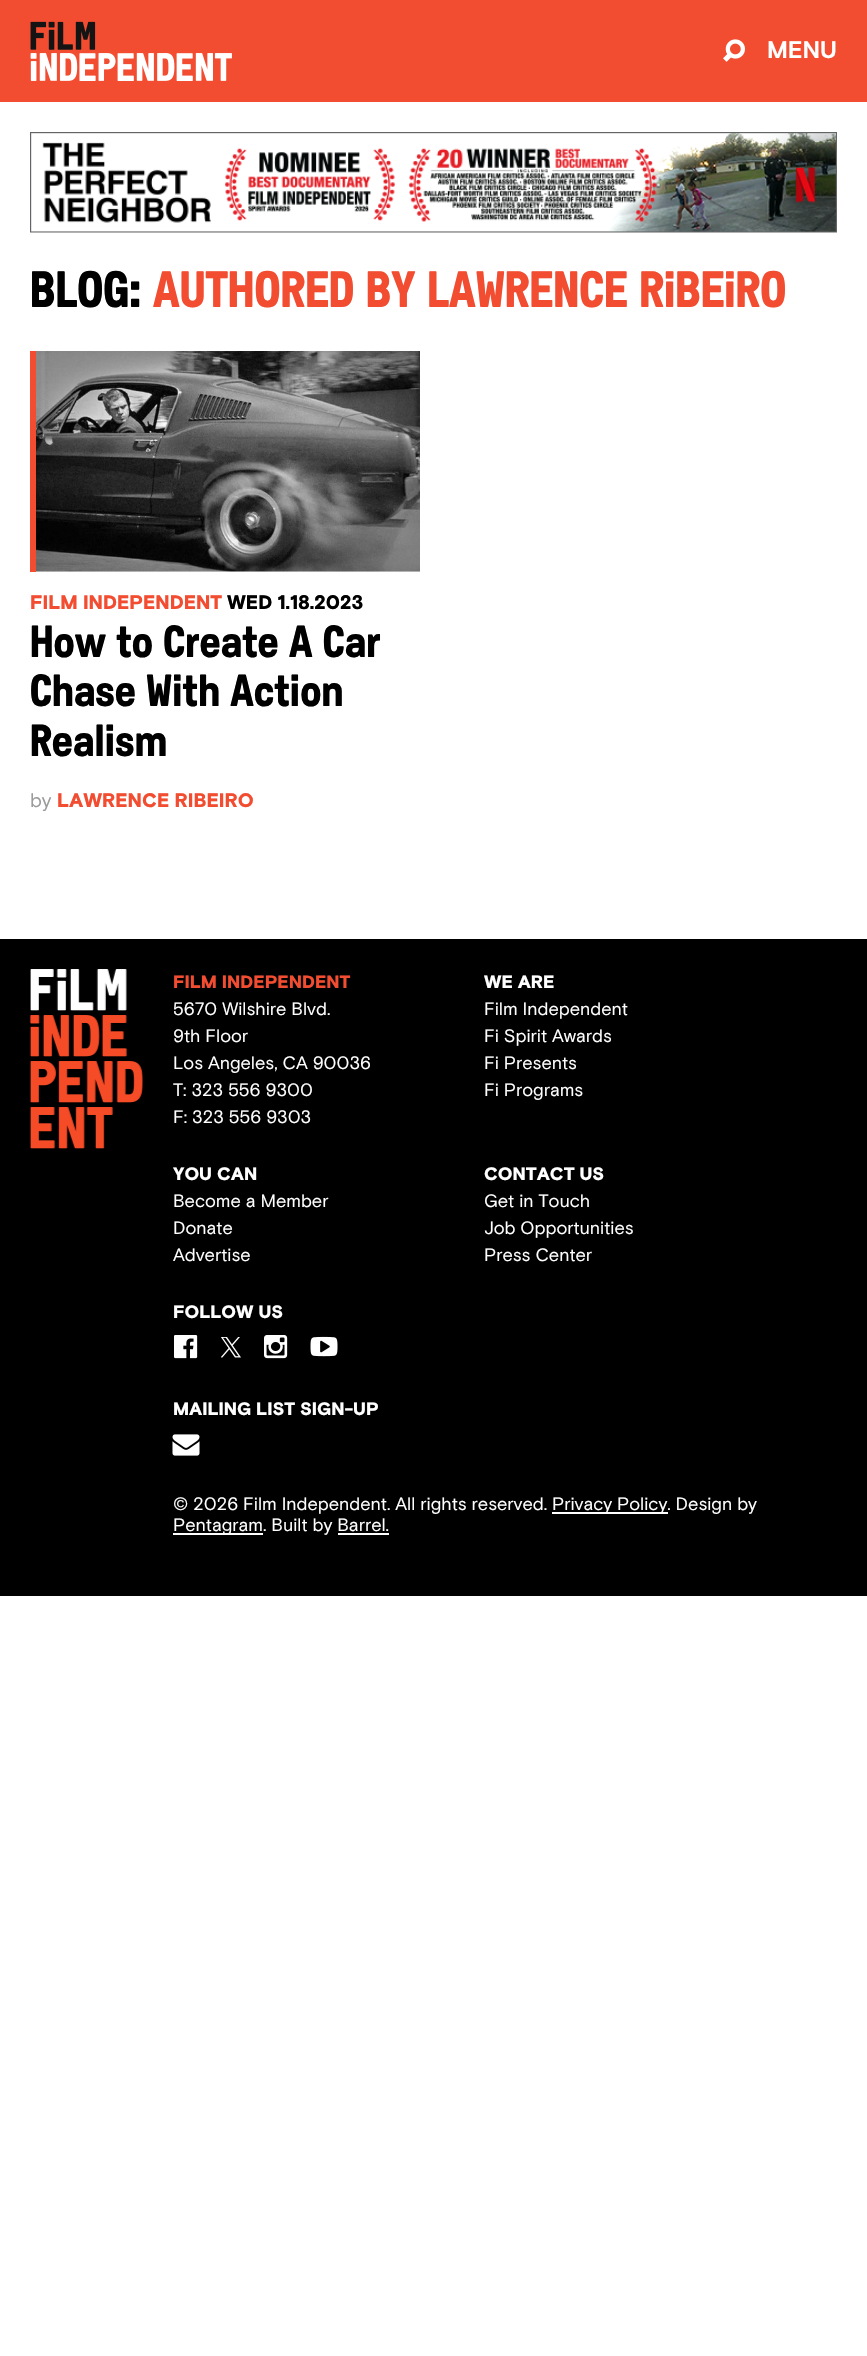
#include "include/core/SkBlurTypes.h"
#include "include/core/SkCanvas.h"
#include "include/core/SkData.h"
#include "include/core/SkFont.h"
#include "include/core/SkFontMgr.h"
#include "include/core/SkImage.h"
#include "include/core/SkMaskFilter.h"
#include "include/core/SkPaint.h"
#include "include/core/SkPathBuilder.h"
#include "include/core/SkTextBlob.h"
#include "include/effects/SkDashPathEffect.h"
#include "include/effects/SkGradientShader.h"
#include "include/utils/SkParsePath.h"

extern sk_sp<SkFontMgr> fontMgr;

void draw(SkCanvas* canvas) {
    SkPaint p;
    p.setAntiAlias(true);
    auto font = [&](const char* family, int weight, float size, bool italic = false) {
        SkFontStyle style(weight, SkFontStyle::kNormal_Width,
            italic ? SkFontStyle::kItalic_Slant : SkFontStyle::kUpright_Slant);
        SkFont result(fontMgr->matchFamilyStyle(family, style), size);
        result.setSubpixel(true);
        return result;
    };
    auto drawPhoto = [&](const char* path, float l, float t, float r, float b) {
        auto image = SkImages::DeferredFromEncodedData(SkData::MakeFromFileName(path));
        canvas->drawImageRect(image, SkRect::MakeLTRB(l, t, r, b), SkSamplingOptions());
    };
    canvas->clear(0xFFFFFFFF);
    p.setColor(0xFFF24C31);
    canvas->drawRect(SkRect::MakeLTRB(0, 0, 867, 102), p);
    drawPhoto("media/1.png", 30, 21, 232, 81);
    drawPhoto("media/2.png", 723, 39, 745, 62);
    auto font1 = font("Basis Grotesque", 700, 24);
    p.setColor(0xFFFFFFFF);
    canvas->drawString("MENU", 767, 58, font1, p);
    drawPhoto("media/3.png", 30, 132, 837, 233);
    auto font2 = font("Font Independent", 500, 51);
    p.setColor(0xFF000000);
    canvas->drawString("Blog:", 30, 307, font2, p);
    p.setColor(0xFFF24C31);
    canvas->drawString("Authored by Lawrence Ribeiro", 153, 307, font2, p);
    canvas->drawRect(SkRect::MakeLTRB(30, 351, 36, 572), p);
    p.setColor(0xFFF0F0F0);
    canvas->drawRect(SkRect::MakeLTRB(36, 571, 420, 572), p);
    drawPhoto("media/4.png", 36, 351, 420, 572);
    auto font3 = font("Basis Grotesque", 900, 19.5f);
    p.setColor(0xFFF24C31);
    canvas->drawString("FILM INDEPENDENT", 30, 609, font3, p);
    p.setColor(0xFF000000);
    canvas->drawString("WED 1.18.2023", 227, 609, font3, p);
    auto font4 = font("FontIndependent", 400, 45);
    {
        const struct { const char* s; float x, y; } items[] = {
            {"How to Create A Car", 30, 657},
            {"Chase With Action", 30, 706},
            {"Realism", 30, 756},
        };
        for (auto [s, x, y] : items) {
            canvas->drawString(s, x, y, font4, p);
        }
    }
    auto font5 = font("Basis Grotesque", 400, 19.5f);
    p.setColor(0xFF9B9B9B);
    canvas->drawString("by", 30, 807, font5, p);
    p.setColor(0xFFF24C31);
    canvas->drawString("LAWRENCE RIBEIRO", 57, 807, font3, p);
    p.setColor(0xFF000000);
    canvas->drawRect(SkRect::MakeLTRB(0, 939, 867, 1596), p);
    drawPhoto("media/5.png", 30, 969, 143, 1149);
    auto font6 = font("Basis Grotesque", 900, 18);
    p.setColor(0xFFF24C31);
    canvas->drawString("FILM INDEPENDENT", 173, 988, font6, p);
    auto font7 = font("Basis Grotesque", 400, 18);
    p.setColor(0xFFFFFFFF);
    {
        const struct { const char* s; float x, y; } items[] = {
            {"5670 Wilshire Blvd.", 173, 1015},
            {"9th Floor", 173, 1042},
            {"Los Angeles, CA 90036", 173, 1069},
            {"T: 323 556 9300", 173, 1096},
            {"F: 323 556 9303", 173, 1123},
        };
        for (auto [s, x, y] : items) {
            canvas->drawString(s, x, y, font7, p);
        }
    }
    canvas->drawString("WE ARE", 484, 988, font6, p);
    {
        const struct { const char* s; float x, y; } items[] = {
            {"Film Independent", 484, 1015},
            {"Fi Spirit Awards", 484, 1042},
            {"Fi Presents", 484, 1069},
            {"Fi Programs", 484, 1096},
        };
        for (auto [s, x, y] : items) {
            canvas->drawString(s, x, y, font7, p);
        }
    }
    canvas->drawString("YOU CAN", 173, 1180, font6, p);
    {
        const struct { const char* s; float x, y; } items[] = {
            {"Become a Member", 173, 1207},
            {"Donate", 173, 1234},
            {"Advertise", 173, 1261},
        };
        for (auto [s, x, y] : items) {
            canvas->drawString(s, x, y, font7, p);
        }
    }
    canvas->drawString("CONTACT US", 484, 1180, font6, p);
    {
        const struct { const char* s; float x, y; } items[] = {
            {"Get in Touch", 484, 1207},
            {"Job Opportunities", 484, 1234},
            {"Press Center", 484, 1261},
        };
        for (auto [s, x, y] : items) {
            canvas->drawString(s, x, y, font7, p);
        }
    }
    canvas->drawString("FOLLOW US", 173, 1318, font6, p);
    drawPhoto("media/6.png", 174, 1335, 198, 1359);
    drawPhoto("media/7.png", 221, 1337, 241, 1358);
    drawPhoto("media/8.png", 264, 1335, 288, 1359);
    drawPhoto("media/9.png", 310, 1336, 338, 1357);
    canvas->drawString("MAILING LIST SIGN-UP", 173, 1415, font6, p);
    drawPhoto("media/10.png", 172, 1434, 200, 1456);
    canvas->drawString("© 2026 Film Independent. All rights reserved.", 173, 1510, font7, p);
    canvas->drawRect(SkRect::MakeLTRB(552, 1512, 668, 1514), p);
    canvas->drawString("Privacy Policy. Design by", 552, 1510, font7, p);
    canvas->drawRect(SkRect::MakeLTRB(173, 1533, 263, 1535), p);
    canvas->drawString("Pentagram. Built by Barrel.", 173, 1531, font7, p);
    canvas->drawRect(SkRect::MakeLTRB(338, 1533, 389, 1535), p);
}
